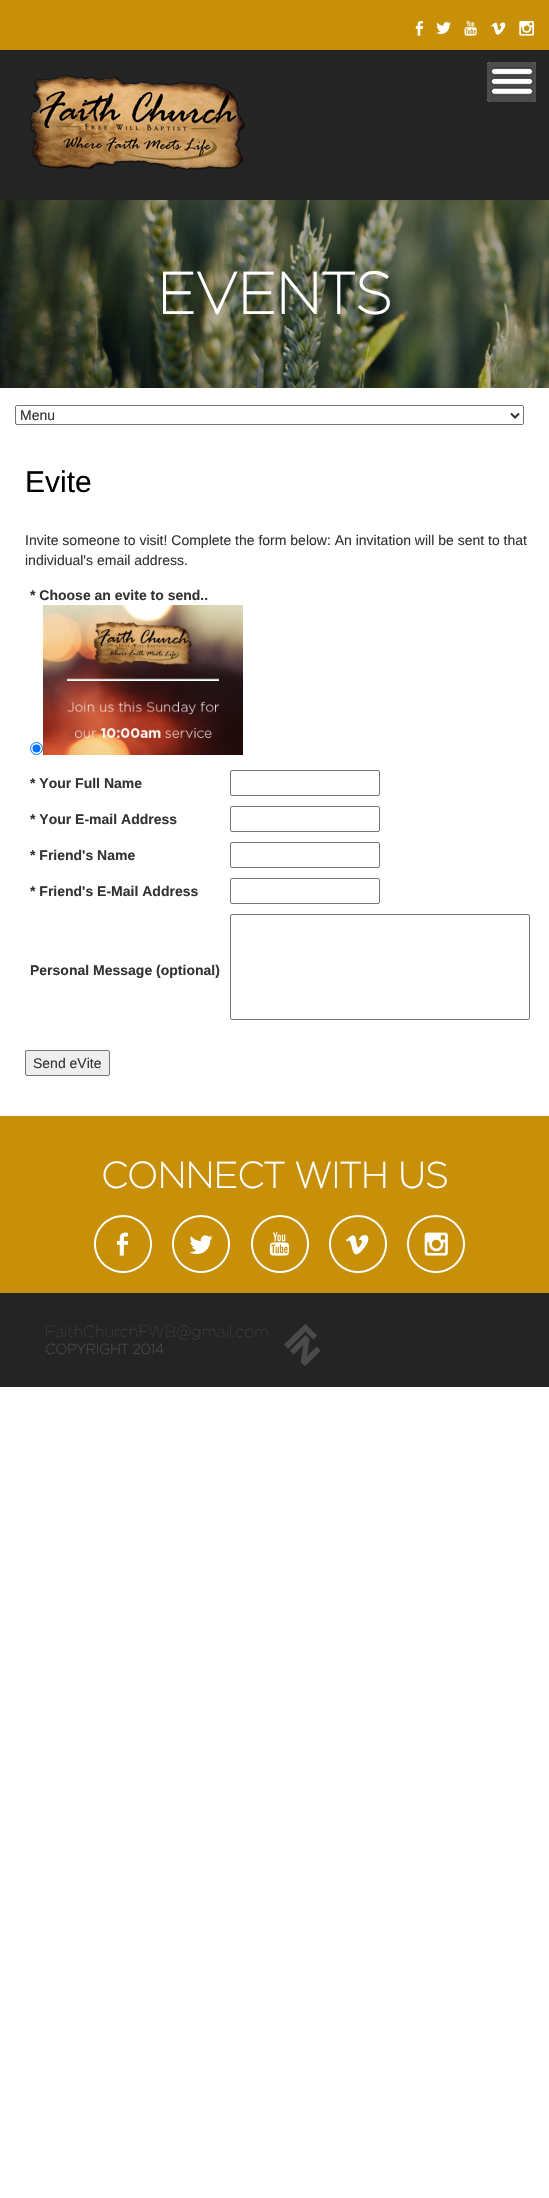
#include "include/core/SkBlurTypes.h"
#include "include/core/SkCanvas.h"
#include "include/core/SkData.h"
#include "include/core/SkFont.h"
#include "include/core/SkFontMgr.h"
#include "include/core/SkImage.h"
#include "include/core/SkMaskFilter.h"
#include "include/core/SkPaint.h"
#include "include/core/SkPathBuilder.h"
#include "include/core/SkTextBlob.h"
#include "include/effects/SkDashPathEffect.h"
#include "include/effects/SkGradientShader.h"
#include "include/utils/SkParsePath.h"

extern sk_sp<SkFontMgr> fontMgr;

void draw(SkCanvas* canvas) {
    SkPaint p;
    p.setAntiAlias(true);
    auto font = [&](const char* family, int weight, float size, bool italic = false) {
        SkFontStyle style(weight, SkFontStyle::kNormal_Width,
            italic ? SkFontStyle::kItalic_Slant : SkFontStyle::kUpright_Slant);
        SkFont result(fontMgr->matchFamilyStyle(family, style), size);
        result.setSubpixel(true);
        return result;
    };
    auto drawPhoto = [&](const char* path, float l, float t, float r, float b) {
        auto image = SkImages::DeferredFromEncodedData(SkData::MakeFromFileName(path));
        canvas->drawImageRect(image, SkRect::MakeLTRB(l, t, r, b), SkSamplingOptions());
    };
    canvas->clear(0xFFFFFFFF);
    p.setColor(0xFF242424);
    canvas->drawRect(SkRect::MakeLTRB(0, 50, 549, 200), p);
    p.setColor(0xFFC88F08);
    canvas->drawRect(SkRect::MakeLTRB(0, 0, 549, 50), p);
    drawPhoto("media/1.png", 415, 21, 423, 36);
    drawPhoto("media/2.png", 436, 22, 451, 34);
    drawPhoto("media/3.png", 464, 20, 477, 36);
    drawPhoto("media/4.png", 491, 22, 506, 35);
    drawPhoto("media/5.png", 519, 21, 534, 36);
    drawPhoto("media/6.png", 30, 75, 245, 170);
    drawPhoto("media/7.png", 487, 62, 536, 102);
    drawPhoto("media/8.png", 0, 200, 549, 388);
    auto font1 = font("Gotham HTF", 700, 58);
    p.setColor(0xFFFFFFFF);
    canvas->drawString("EVENTS", 157, 314, font1, p);
    p.setStyle(SkPaint::kStroke_Style);
    p.setStrokeWidth(1);
    p.setColor(0xFF767676);
    canvas->drawRoundRect(SkRect::MakeLTRB(15.5f, 405.5f, 523.5f, 424.5f), 1.5f, 1.5f, p);
    p.setStrokeWidth(2);
    p.setColor(0xFF333333);
    canvas->drawPath(SkPathBuilder().moveTo(511, 413.5f).lineTo(515, 417.5f).lineTo(519, 413.5f).detach(), p);
    auto font2 = font("Liberation Sans", 400, 14);
    p.setStyle(SkPaint::kFill_Style);
    canvas->drawString("Menu", 20, 420, font2, p);
    auto font3 = font("Liberation Sans", 400, 30);
    p.setColor(0xFF000000);
    canvas->drawString("Evite", 25, 492, font3, p);
    p.setColor(0xFF333333);
    canvas->drawString("Invite someone to visit! Complete the form below: An invitation will be sent to that", 25, 545, font2, p);
    canvas->drawString("individual's email address.", 25, 565, font2, p);
    auto font4 = font("Liberation Sans", 700, 14);
    canvas->drawString("* Choose an evite to send..", 30, 600, font4, p);
    p.setStyle(SkPaint::kStroke_Style);
    p.setStrokeWidth(1);
    p.setColor(0xFF0075FF);
    canvas->drawCircle(36.5f, 748.5f, 6, p);
    p.setStyle(SkPaint::kFill_Style);
    canvas->drawCircle(36.5f, 748.5f, 4, p);
    drawPhoto("media/9.png", 43, 605, 243, 755);
    p.setColor(0xFF333333);
    canvas->drawString("* Your Full Name", 30, 788, font4, p);
    p.setStyle(SkPaint::kStroke_Style);
    p.setColor(0xFF767676);
    canvas->drawRoundRect(SkRect::MakeLTRB(230.5f, 770.5f, 379.5f, 795.5f), 1.5f, 1.5f, p);
    p.setStyle(SkPaint::kFill_Style);
    p.setColor(0xFF333333);
    canvas->drawString("* Your E-mail Address", 30, 824, font4, p);
    p.setStyle(SkPaint::kStroke_Style);
    p.setColor(0xFF767676);
    canvas->drawRoundRect(SkRect::MakeLTRB(230.5f, 806.5f, 379.5f, 831.5f), 1.5f, 1.5f, p);
    p.setStyle(SkPaint::kFill_Style);
    p.setColor(0xFF333333);
    canvas->drawString("* Friend's Name", 30, 860, font4, p);
    p.setStyle(SkPaint::kStroke_Style);
    p.setColor(0xFF767676);
    canvas->drawRoundRect(SkRect::MakeLTRB(230.5f, 842.5f, 379.5f, 867.5f), 1.5f, 1.5f, p);
    p.setStyle(SkPaint::kFill_Style);
    p.setColor(0xFF333333);
    canvas->drawString("* Friend's E-Mail Address", 30, 896, font4, p);
    p.setStyle(SkPaint::kStroke_Style);
    p.setColor(0xFF767676);
    canvas->drawRoundRect(SkRect::MakeLTRB(230.5f, 878.5f, 379.5f, 903.5f), 1.5f, 1.5f, p);
    p.setStyle(SkPaint::kFill_Style);
    p.setColor(0xFF333333);
    canvas->drawString("Personal Message (optional)", 30, 975, font4, p);
    p.setStyle(SkPaint::kStroke_Style);
    p.setColor(0xFF767676);
    canvas->drawRoundRect(SkRect::MakeLTRB(230.5f, 914.5f, 529.5f, 1019.5f), 1.5f, 1.5f, p);
    p.setStyle(SkPaint::kFill_Style);
    p.setColor(0xFFEFEFEF);
    canvas->drawRoundRect(SkRect::MakeLTRB(25.5f, 1050.5f, 109.5f, 1075.5f), 1.5f, 1.5f, p);
    p.setStyle(SkPaint::kStroke_Style);
    p.setColor(0xFF767676);
    canvas->drawRoundRect(SkRect::MakeLTRB(25.5f, 1050.5f, 109.5f, 1075.5f), 1.5f, 1.5f, p);
    p.setStyle(SkPaint::kFill_Style);
    p.setColor(0xFF333333);
    canvas->drawString("Send eVite", 33, 1068, font2, p);
    p.setColor(0xFFC88F08);
    canvas->drawRect(SkRect::MakeLTRB(0, 1116, 549, 1293), p);
    auto font5 = font("Gotham HTF", 700, 36);
    p.setColor(0xFFFFFFFF);
    canvas->drawString("CONNECT WITH US", 101, 1188, font5, p);
    drawPhoto("media/10.png", 94, 1215, 152, 1273);
    drawPhoto("media/11.png", 172, 1215, 230, 1273);
    drawPhoto("media/12.png", 251, 1215, 309, 1273);
    drawPhoto("media/13.png", 329, 1215, 387, 1273);
    drawPhoto("media/14.png", 407, 1215, 465, 1273);
    p.setColor(0xFF242424);
    canvas->drawRect(SkRect::MakeLTRB(0, 1293, 549, 1387), p);
    auto font6 = font("Gotham HTF", 100, 16);
    p.setColor(0xFF4A4A4A);
    canvas->drawString("FaithChurchFWB@gmail.com", 45, 1337, font6, p);
    auto font7 = font("Gotham HTF", 700, 14);
    canvas->drawString("COPYRIGHT 2014", 45, 1354, font7, p);
    drawPhoto("media/15.png", 284, 1324, 321, 1366);
}
